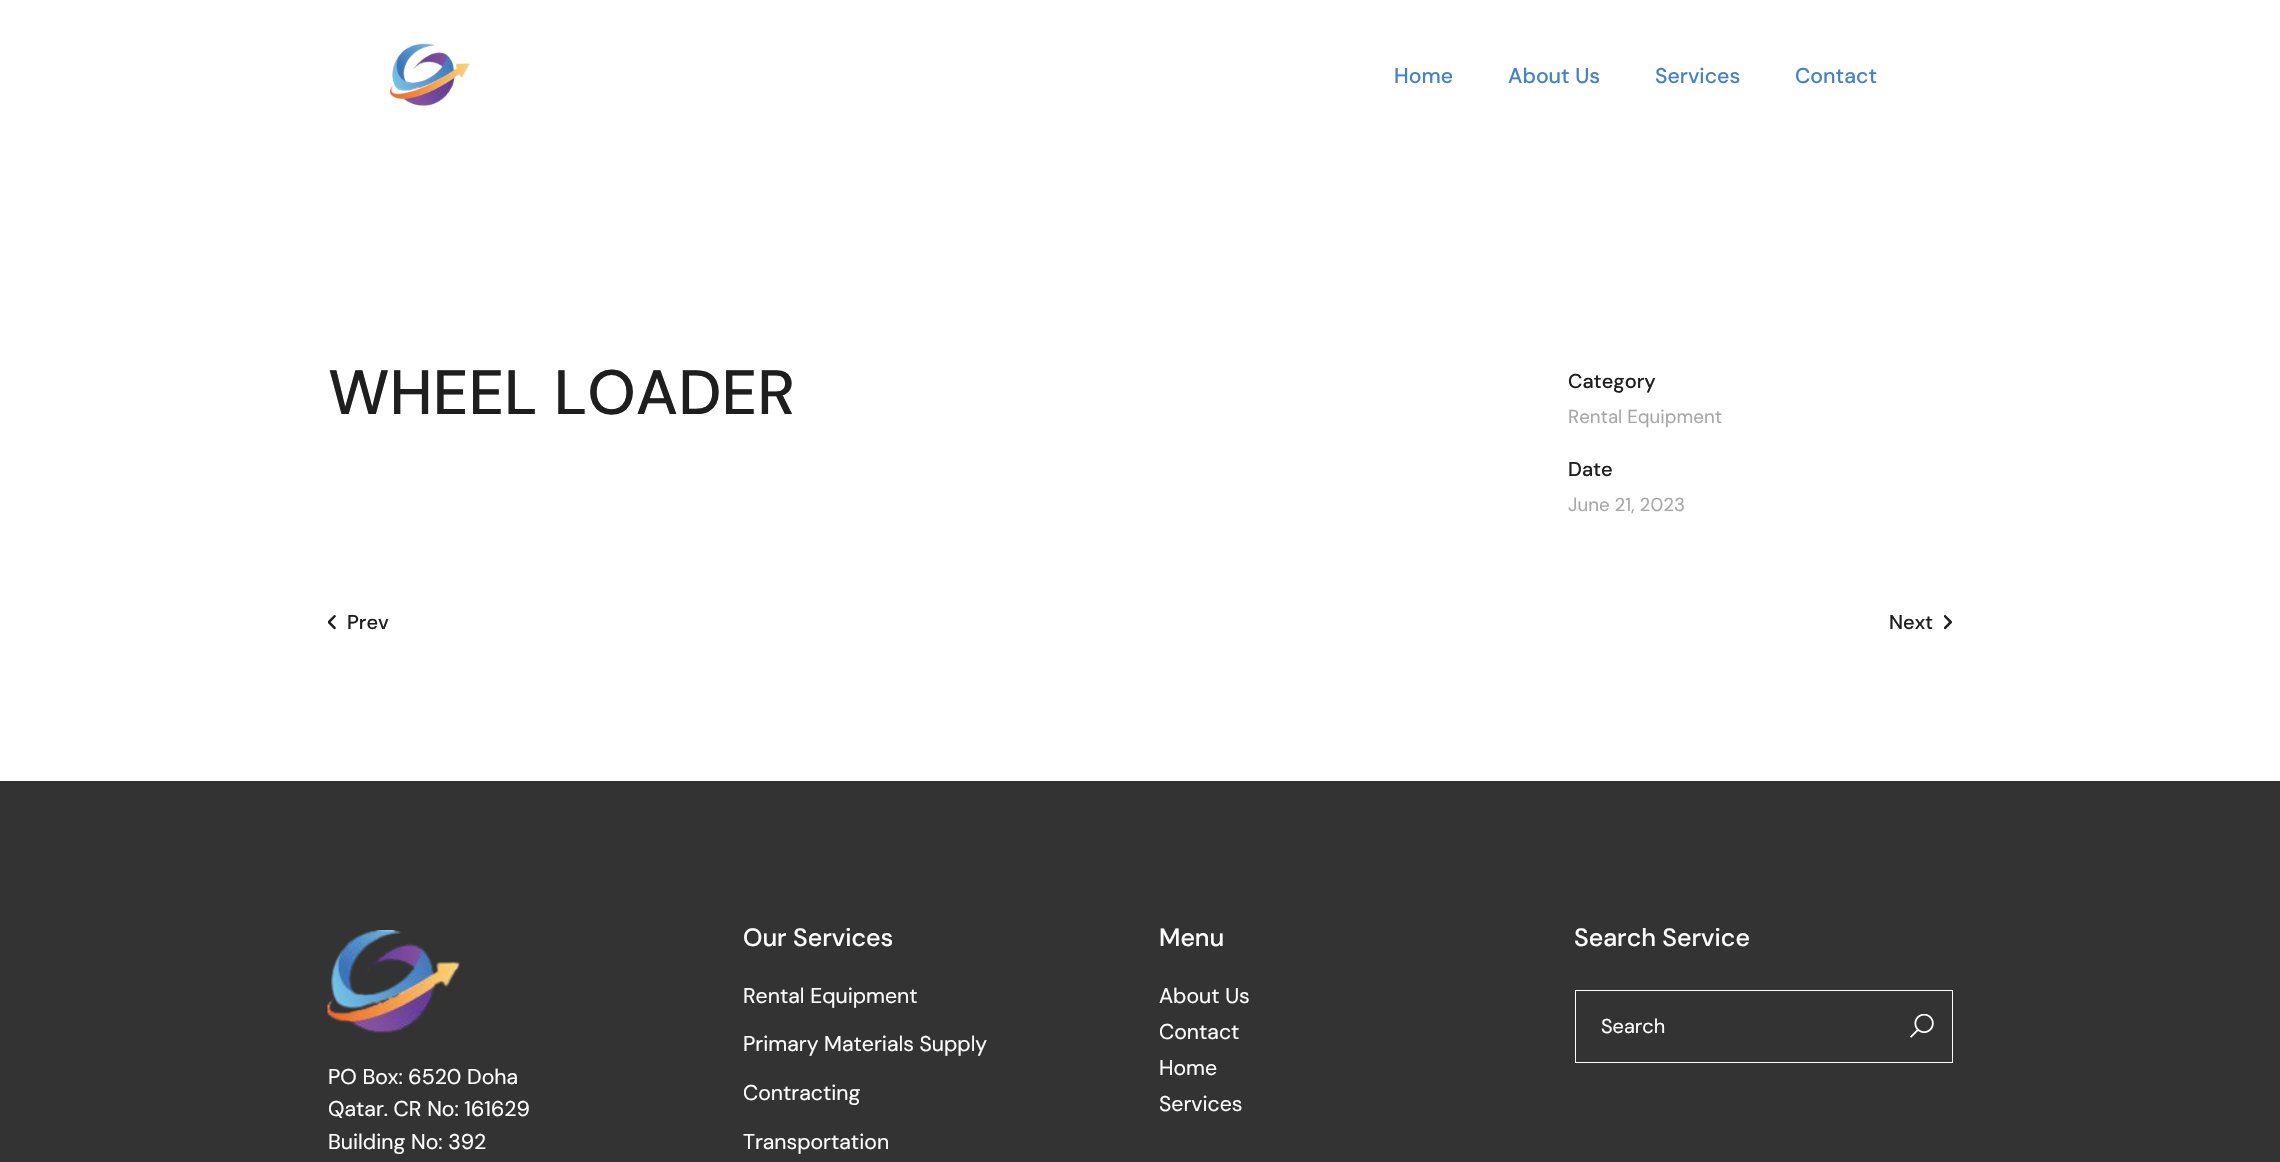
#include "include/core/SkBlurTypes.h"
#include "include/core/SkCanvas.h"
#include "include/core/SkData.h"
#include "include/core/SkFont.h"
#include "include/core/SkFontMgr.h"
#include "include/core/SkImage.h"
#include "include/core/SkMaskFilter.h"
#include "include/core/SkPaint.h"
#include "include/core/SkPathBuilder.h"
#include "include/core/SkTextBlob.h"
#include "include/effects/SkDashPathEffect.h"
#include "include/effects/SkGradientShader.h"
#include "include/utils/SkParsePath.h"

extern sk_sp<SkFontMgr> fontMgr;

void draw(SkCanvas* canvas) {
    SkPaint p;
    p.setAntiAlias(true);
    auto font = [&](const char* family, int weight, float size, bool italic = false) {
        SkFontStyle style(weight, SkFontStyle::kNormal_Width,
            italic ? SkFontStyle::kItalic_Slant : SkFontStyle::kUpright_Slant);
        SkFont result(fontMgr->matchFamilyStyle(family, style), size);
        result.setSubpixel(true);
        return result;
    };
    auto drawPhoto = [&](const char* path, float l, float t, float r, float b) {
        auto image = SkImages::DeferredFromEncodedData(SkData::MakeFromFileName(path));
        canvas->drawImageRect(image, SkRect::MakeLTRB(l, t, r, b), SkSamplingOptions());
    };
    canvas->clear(0xFFFFFFFF);
    drawPhoto("media/1.png", 390, 43, 470, 106);
    auto font1 = font("DM Sans", 500, 21.25f);
    p.setColor(0xFF4582C3);
    {
        const struct { const char* s; float x, y; } items[] = {
            {"Home", 1394, 83},
            {"About Us", 1508, 83},
            {"Services", 1655, 83},
            {"Contact", 1795, 83},
        };
        for (auto [s, x, y] : items) {
            canvas->drawString(s, x, y, font1, p);
        }
    }
    auto font2 = font("DM Sans", 500, 62.5f);
    p.setColor(0xFF1E1E1E);
    canvas->drawString("WHEEL LOADER", 328, 414, font2, p);
    auto font3 = font("DM Sans", 500, 20);
    canvas->drawString("Category", 1568, 388, font3, p);
    auto font4 = font("DM Sans", 400, 18.75f);
    p.setColor(0xFFA8A7A7);
    canvas->drawString("Rental Equipment", 1568, 423, font4, p);
    p.setColor(0xFF1E1E1E);
    canvas->drawString("Date", 1568, 476, font3, p);
    p.setColor(0xFFA8A7A7);
    canvas->drawString("June 21, 2023", 1568, 511, font4, p);
    drawPhoto("media/2.png", 328, 615, 336, 630);
    p.setColor(0xFF1E1E1E);
    canvas->drawString("Prev", 347, 629, font3, p);
    canvas->drawString("Next", 1889, 629, font3, p);
    drawPhoto("media/3.png", 1944, 615, 1953, 630);
    p.setColor(0xFF333333);
    canvas->drawRect(SkRect::MakeLTRB(0, 781, 2280, 1162), p);
    drawPhoto("media/4.png", 327, 930, 460, 1033);
    auto font5 = font("DM Sans", 400, 21.25f);
    p.setColor(0xFFFFFFFF);
    {
        const struct { const char* s; float x, y; } items[] = {
            {"PO Box: 6520 Doha", 328, 1084},
            {"Qatar. CR No: 161629", 328, 1116},
            {"Building No: 392", 328, 1149},
        };
        for (auto [s, x, y] : items) {
            canvas->drawString(s, x, y, font5, p);
        }
    }
    auto font6 = font("DM Sans", 500, 25);
    canvas->drawString("Our Services", 743, 946, font6, p);
    {
        const struct { const char* s; float x, y; } items[] = {
            {"Rental Equipment", 743, 1003},
            {"Primary Materials Supply", 743, 1051},
            {"Contracting", 743, 1100},
            {"Transportation", 743, 1149},
        };
        for (auto [s, x, y] : items) {
            canvas->drawString(s, x, y, font5, p);
        }
    }
    canvas->drawString("Menu", 1159, 946, font6, p);
    {
        const struct { const char* s; float x, y; } items[] = {
            {"About Us", 1159, 1003},
            {"Contact", 1159, 1039},
            {"Home", 1159, 1075},
            {"Services", 1159, 1111},
        };
        for (auto [s, x, y] : items) {
            canvas->drawString(s, x, y, font5, p);
        }
    }
    canvas->drawString("Search Service", 1574, 946, font6, p);
    p.setStyle(SkPaint::kStroke_Style);
    p.setStrokeWidth(1);
    canvas->drawRect(SkRect::MakeLTRB(1575.5f, 990.5f, 1952.5f, 1062.5f), p);
    auto font7 = font("DM Sans", 400, 20);
    p.setStyle(SkPaint::kFill_Style);
    canvas->drawString("Search", 1601, 1033, font7, p);
    drawPhoto("media/5.png", 1910, 1014, 1934, 1038);
}
